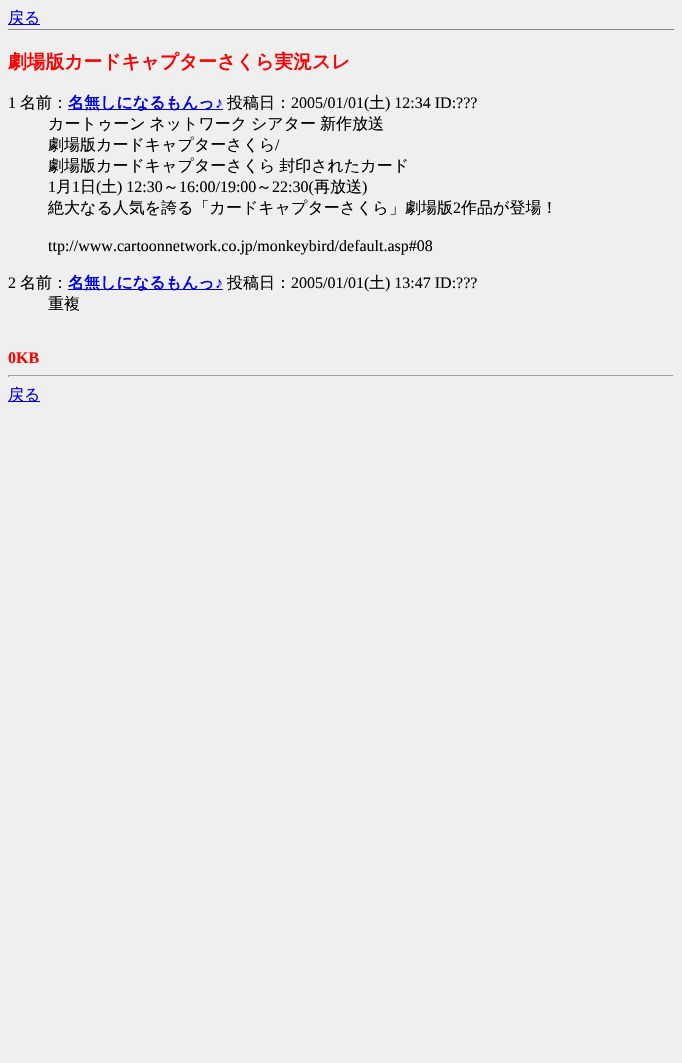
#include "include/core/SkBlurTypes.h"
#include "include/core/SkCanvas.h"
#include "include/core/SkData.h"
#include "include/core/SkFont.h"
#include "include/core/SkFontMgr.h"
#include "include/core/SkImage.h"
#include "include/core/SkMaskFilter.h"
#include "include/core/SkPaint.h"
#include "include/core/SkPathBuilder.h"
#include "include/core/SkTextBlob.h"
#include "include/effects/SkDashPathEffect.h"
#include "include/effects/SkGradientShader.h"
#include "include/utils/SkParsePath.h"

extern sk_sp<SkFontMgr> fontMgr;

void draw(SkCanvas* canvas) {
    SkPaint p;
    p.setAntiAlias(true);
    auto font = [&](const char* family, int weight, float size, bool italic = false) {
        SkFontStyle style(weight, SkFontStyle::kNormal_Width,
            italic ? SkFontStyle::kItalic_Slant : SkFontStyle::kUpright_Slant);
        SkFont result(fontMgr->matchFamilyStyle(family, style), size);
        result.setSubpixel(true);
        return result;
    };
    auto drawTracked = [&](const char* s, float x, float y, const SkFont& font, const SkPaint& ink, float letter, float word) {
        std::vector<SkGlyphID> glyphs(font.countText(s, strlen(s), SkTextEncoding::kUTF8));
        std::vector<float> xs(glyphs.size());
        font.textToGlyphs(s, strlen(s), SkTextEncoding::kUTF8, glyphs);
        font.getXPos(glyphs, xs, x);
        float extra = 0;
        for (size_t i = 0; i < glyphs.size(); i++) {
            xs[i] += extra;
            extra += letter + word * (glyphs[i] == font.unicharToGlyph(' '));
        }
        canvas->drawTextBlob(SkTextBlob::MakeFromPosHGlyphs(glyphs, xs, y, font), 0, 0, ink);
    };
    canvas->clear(0xFFEFEFEF);
    p.setColor(0xFF888888);
    canvas->drawRect(SkRect::MakeLTRB(8, 29, 674, 30), p);
    p.setColor(0xFF0000EE);
    canvas->drawRect(SkRect::MakeLTRB(8, 24, 40, 25), p);
    auto font1 = font("WenQuanYi Zen Hei", 500, 16);
    canvas->drawString("戻る", 8, 23, font1, p);
    auto font2 = font("WenQuanYi Zen Hei", 700, 18.75f);
    p.setColor(0xFFFF0000);
    canvas->drawString("劇場版カードキャプターさくら実況スレ", 8, 68, font2, p);
    auto font3 = font("Liberation Serif", 400, 16);
    p.setColor(0xFF000000);
    canvas->drawString("1", 8, 108, font3, p);
    canvas->drawString("名前：", 20, 108, font1, p);
    p.setColor(0xFF0000EE);
    canvas->drawRect(SkRect::MakeLTRB(68, 109, 223, 110), p);
    auto font4 = font("WenQuanYi Zen Hei", 700, 16);
    canvas->drawString("名無しになるもんっ", 68, 108, font4, p);
    auto font5 = font("Liberation Serif", 700, 16);
    canvas->drawString("♪", 215, 108, font5, p);
    p.setColor(0xFF000000);
    canvas->drawString("投稿日：", 227, 108, font1, p);
    canvas->drawString("2005/01/01(", 291, 108, font3, p);
    canvas->drawString("土", 369, 108, font1, p);
    canvas->drawString(") 12:34 ID:?\077?", 385, 108, font3, p);
    drawTracked("カートゥーン ネットワーク シアター 新作放送", 48, 129, font1, p, 0, -1);
    canvas->drawString("劇場版カードキャプターさくら", 48, 150, font1, p);
    canvas->drawString("/", 275, 150, font3, p);
    drawTracked("劇場版カードキャプターさくら 封印されたカード", 48, 171, font1, p, 0, -1);
    canvas->drawString("1", 48, 192, font3, p);
    canvas->drawString("月", 56, 192, font1, p);
    canvas->drawString("1", 72, 192, font3, p);
    canvas->drawString("日", 80, 192, font1, p);
    canvas->drawString("(", 96, 192, font3, p);
    canvas->drawString("土", 101, 192, font1, p);
    canvas->drawString(") 12:30", 117, 192, font3, p);
    canvas->drawString("～", 163, 192, font1, p);
    canvas->drawString("16:00/19:00", 179, 192, font3, p);
    canvas->drawString("～", 256, 192, font1, p);
    canvas->drawString("22:30(", 272, 192, font3, p);
    canvas->drawString("再放送", 314, 192, font1, p);
    canvas->drawString(")", 362, 192, font3, p);
    canvas->drawString("絶大なる人気を誇る「カードキャプターさくら」劇場版", 48, 213, font1, p);
    canvas->drawString("2", 453, 213, font3, p);
    canvas->drawString("作品が登場！", 461, 213, font1, p);
    canvas->drawString("ttp://www.cartoonnetwork.co.jp/monkeybird/default.asp#08", 48, 251, font3, p);
    canvas->drawString("2", 8, 288, font3, p);
    canvas->drawString("名前：", 20, 288, font1, p);
    p.setColor(0xFF0000EE);
    canvas->drawRect(SkRect::MakeLTRB(68, 289, 223, 290), p);
    canvas->drawString("名無しになるもんっ", 68, 288, font4, p);
    canvas->drawString("♪", 215, 288, font5, p);
    p.setColor(0xFF000000);
    canvas->drawString("投稿日：", 227, 288, font1, p);
    canvas->drawString("2005/01/01(", 291, 288, font3, p);
    canvas->drawString("土", 369, 288, font1, p);
    canvas->drawString(") 13:47 ID:?\077?", 385, 288, font3, p);
    canvas->drawString("重複", 48, 309, font1, p);
    p.setColor(0xFFFF0000);
    canvas->drawString("0KB", 8, 363, font5, p);
    {
        const struct { float l, t, r, b; SkColor color; } items[] = {
            {8, 375, 674, 376, 0xFF9F9F9F},
            {673, 375, 674, 377, 0xFFEEEEEE},
            {8, 375, 9, 377, 0xFF9F9F9F},
            {8, 401, 40, 402, 0xFF0000EE},
        };
        for (auto [l, t, r, b, color] : items) {
            p.setColor(color);
            canvas->drawRect(SkRect::MakeLTRB(l, t, r, b), p);
        }
    }
    canvas->drawString("戻る", 8, 400, font1, p);
}
